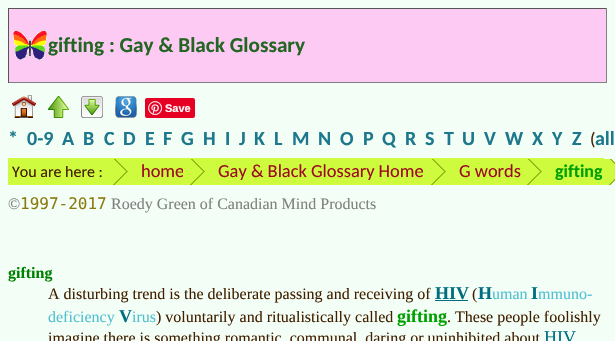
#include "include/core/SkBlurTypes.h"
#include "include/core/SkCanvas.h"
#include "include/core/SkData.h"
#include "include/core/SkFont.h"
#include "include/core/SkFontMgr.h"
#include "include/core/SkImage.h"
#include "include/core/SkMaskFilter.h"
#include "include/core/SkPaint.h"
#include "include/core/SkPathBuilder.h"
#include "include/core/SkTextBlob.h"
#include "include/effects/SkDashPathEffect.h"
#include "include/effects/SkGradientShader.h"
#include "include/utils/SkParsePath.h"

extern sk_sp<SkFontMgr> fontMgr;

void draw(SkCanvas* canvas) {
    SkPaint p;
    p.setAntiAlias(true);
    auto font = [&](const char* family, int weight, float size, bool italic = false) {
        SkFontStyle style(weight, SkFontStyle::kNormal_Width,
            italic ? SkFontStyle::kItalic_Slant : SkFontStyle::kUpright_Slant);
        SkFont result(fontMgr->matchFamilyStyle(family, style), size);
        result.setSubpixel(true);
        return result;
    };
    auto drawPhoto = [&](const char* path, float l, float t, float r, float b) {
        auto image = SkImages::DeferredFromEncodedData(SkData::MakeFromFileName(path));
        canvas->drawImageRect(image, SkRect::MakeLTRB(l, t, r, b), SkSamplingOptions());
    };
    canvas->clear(0xFFF3FFF6);
    p.setColor(0xFFFDCAF4);
    canvas->drawRect(SkRect::MakeLTRB(9, 9, 606, 82), p);
    drawPhoto("media/1.png", 13, 31, 47, 60);
    {
        const struct { float l, t, r, b; SkColor color; } items[] = {
            {8, 8, 607, 9, 0xFF555555},
            {606, 8, 607, 83, 0xFF808080},
            {8, 82, 607, 83, 0xFF808080},
            {8, 8, 9, 83, 0xFF555555},
        };
        for (auto [l, t, r, b, color] : items) {
            p.setColor(color);
            canvas->drawRect(SkRect::MakeLTRB(l, t, r, b), p);
        }
    }
    auto font1 = font("Carlito", 700, 21.25f);
    p.setColor(0xFF226622);
    canvas->drawString("gifting : Gay & Black Glossary", 48, 52, font1, p);
    drawPhoto("media/2.png", 12, 95, 36, 118);
    drawPhoto("media/3.png", 48, 96, 69, 118);
    drawPhoto("media/4.png", 81, 96, 103, 118);
    drawPhoto("media/5.png", 115, 96, 137, 118);
    p.setColor(0xFFE60023);
    canvas->drawRoundRect(SkRect::MakeLTRB(145, 98, 195, 118), 2, 2, p);
    drawPhoto("media/6.png", 148, 101, 162, 115);
    auto font2 = font("Liberation Sans", 700, 11);
    p.setColor(0xFFFFFFFF);
    canvas->drawString("Save", 165, 112, font2, p);
    auto font3 = font("Carlito", 700, 20);
    p.setColor(0xFF1D788D);
    {
        const struct { const char* s; float x, y; } items[] = {
            {"*", 8, 145},
            {"0-9", 27, 145},
            {"A", 62, 145},
            {"B", 83, 145},
            {"C", 104, 145},
            {"D", 123, 145},
            {"E", 145, 145},
            {"F", 163, 145},
            {"G", 181, 145},
            {"H", 203, 145},
            {"I", 225, 145},
            {"J", 239, 145},
            {"K", 254, 145},
            {"L", 274, 145},
            {"M", 292, 145},
            {"N", 318, 145},
            {"O", 340, 145},
            {"P", 363, 145},
            {"Q", 382, 145},
            {"R", 405, 145},
            {"S", 425, 145},
            {"T", 444, 145},
            {"U", 462, 145},
            {"V", 484, 145},
            {"W", 505, 145},
            {"X", 532, 145},
            {"Y", 552, 145},
            {"Z", 572, 145},
        };
        for (auto [s, x, y] : items) {
            canvas->drawString(s, x, y, font3, p);
        }
    }
    auto font4 = font("Carlito", 400, 18);
    p.setColor(0xFF421F00);
    canvas->drawString("(", 590, 145, font4, p);
    p.setColor(0xFF1D788D);
    canvas->drawString("all", 595, 145, font3, p);
    p.setColor(0xFFCFFB3F);
    canvas->drawRect(SkRect::MakeLTRB(8, 158, 183, 185), p);
    auto font5 = font("Carlito", 400, 16);
    p.setColor(0xFF421F00);
    canvas->drawString("You are here :", 12, 177, font5, p);
    drawPhoto("media/7.png", 113, 159, 128, 185);
    auto font6 = font("Carlito", 400, 18.4f);
    p.setColor(0xFF9D0B21);
    canvas->drawString("home", 141, 177, font6, p);
    p.setColor(0xFFCFFB3F);
    canvas->drawRect(SkRect::MakeLTRB(183, 158, 604, 185), p);
    drawPhoto("media/7.png", 190, 159, 205, 185);
    p.setColor(0xFF9D0B21);
    canvas->drawString("Gay & Black Glossary Home", 218, 177, font6, p);
    drawPhoto("media/7.png", 431, 159, 446, 185);
    canvas->drawString("G words", 459, 177, font6, p);
    drawPhoto("media/7.png", 527, 159, 542, 185);
    auto font7 = font("Carlito", 700, 18);
    p.setColor(0xFF00A000);
    canvas->drawString("gifting", 555, 177, font7, p);
    drawPhoto("media/8.png", 602, 159, 615, 185);
    auto font8 = font("Liberation Serif", 400, 16);
    p.setColor(0xFF808080);
    canvas->drawString("©", 8, 209, font8, p);
    auto font9 = font("DejaVu Sans Mono", 400, 16);
    p.setColor(0xFF8B7A11);
    canvas->drawString("1997-2017", 20, 209, font9, p);
    p.setColor(0xFF808080);
    canvas->drawString("Roedy Green of Canadian Mind Products", 111, 209, font8, p);
    auto font10 = font("Liberation Serif", 700, 16);
    p.setColor(0xFF008000);
    canvas->drawString("gifting", 8, 278, font10, p);
    p.setColor(0xFF421F00);
    canvas->drawString("A disturbing trend is the deliberate passing and receiving of", 48, 299, font8, p);
    auto font11 = font("Liberation Serif", 700, 18);
    p.setColor(0xFF006E80);
    canvas->drawString("HIV", 435, 299, font11, p);
    canvas->drawRect(SkRect::MakeLTRB(435, 300, 468, 301), p);
    p.setColor(0xFF421F00);
    canvas->drawString("(", 472, 299, font8, p);
    p.setColor(0xFF006E80);
    canvas->drawString("H", 478, 299, font11, p);
    p.setColor(0xFF52C0D1);
    canvas->drawString("uman", 492, 299, font8, p);
    p.setColor(0xFF006E80);
    canvas->drawString("I", 531, 299, font11, p);
    p.setColor(0xFF52C0D1);
    canvas->drawString("mmuno-", 538, 299, font8, p);
    canvas->drawString("deficiency", 48, 322, font8, p);
    p.setColor(0xFF006E80);
    canvas->drawString("V", 119, 322, font11, p);
    p.setColor(0xFF52C0D1);
    canvas->drawString("irus", 132, 322, font8, p);
    p.setColor(0xFF421F00);
    canvas->drawString(") voluntarily and ritualistically called", 156, 322, font8, p);
    p.setColor(0xFF00A000);
    canvas->drawString("gifting", 397, 322, font11, p);
    p.setColor(0xFF421F00);
    canvas->drawString(". These people foolishly", 447, 322, font8, p);
    canvas->drawString("imagine there is something romantic, communal, daring or uninhibited about", 48, 343, font8, p);
    auto font12 = font("Liberation Serif", 400, 18);
    p.setColor(0xFF006E80);
    canvas->drawString("HIV", 544, 343, font12, p);
}
